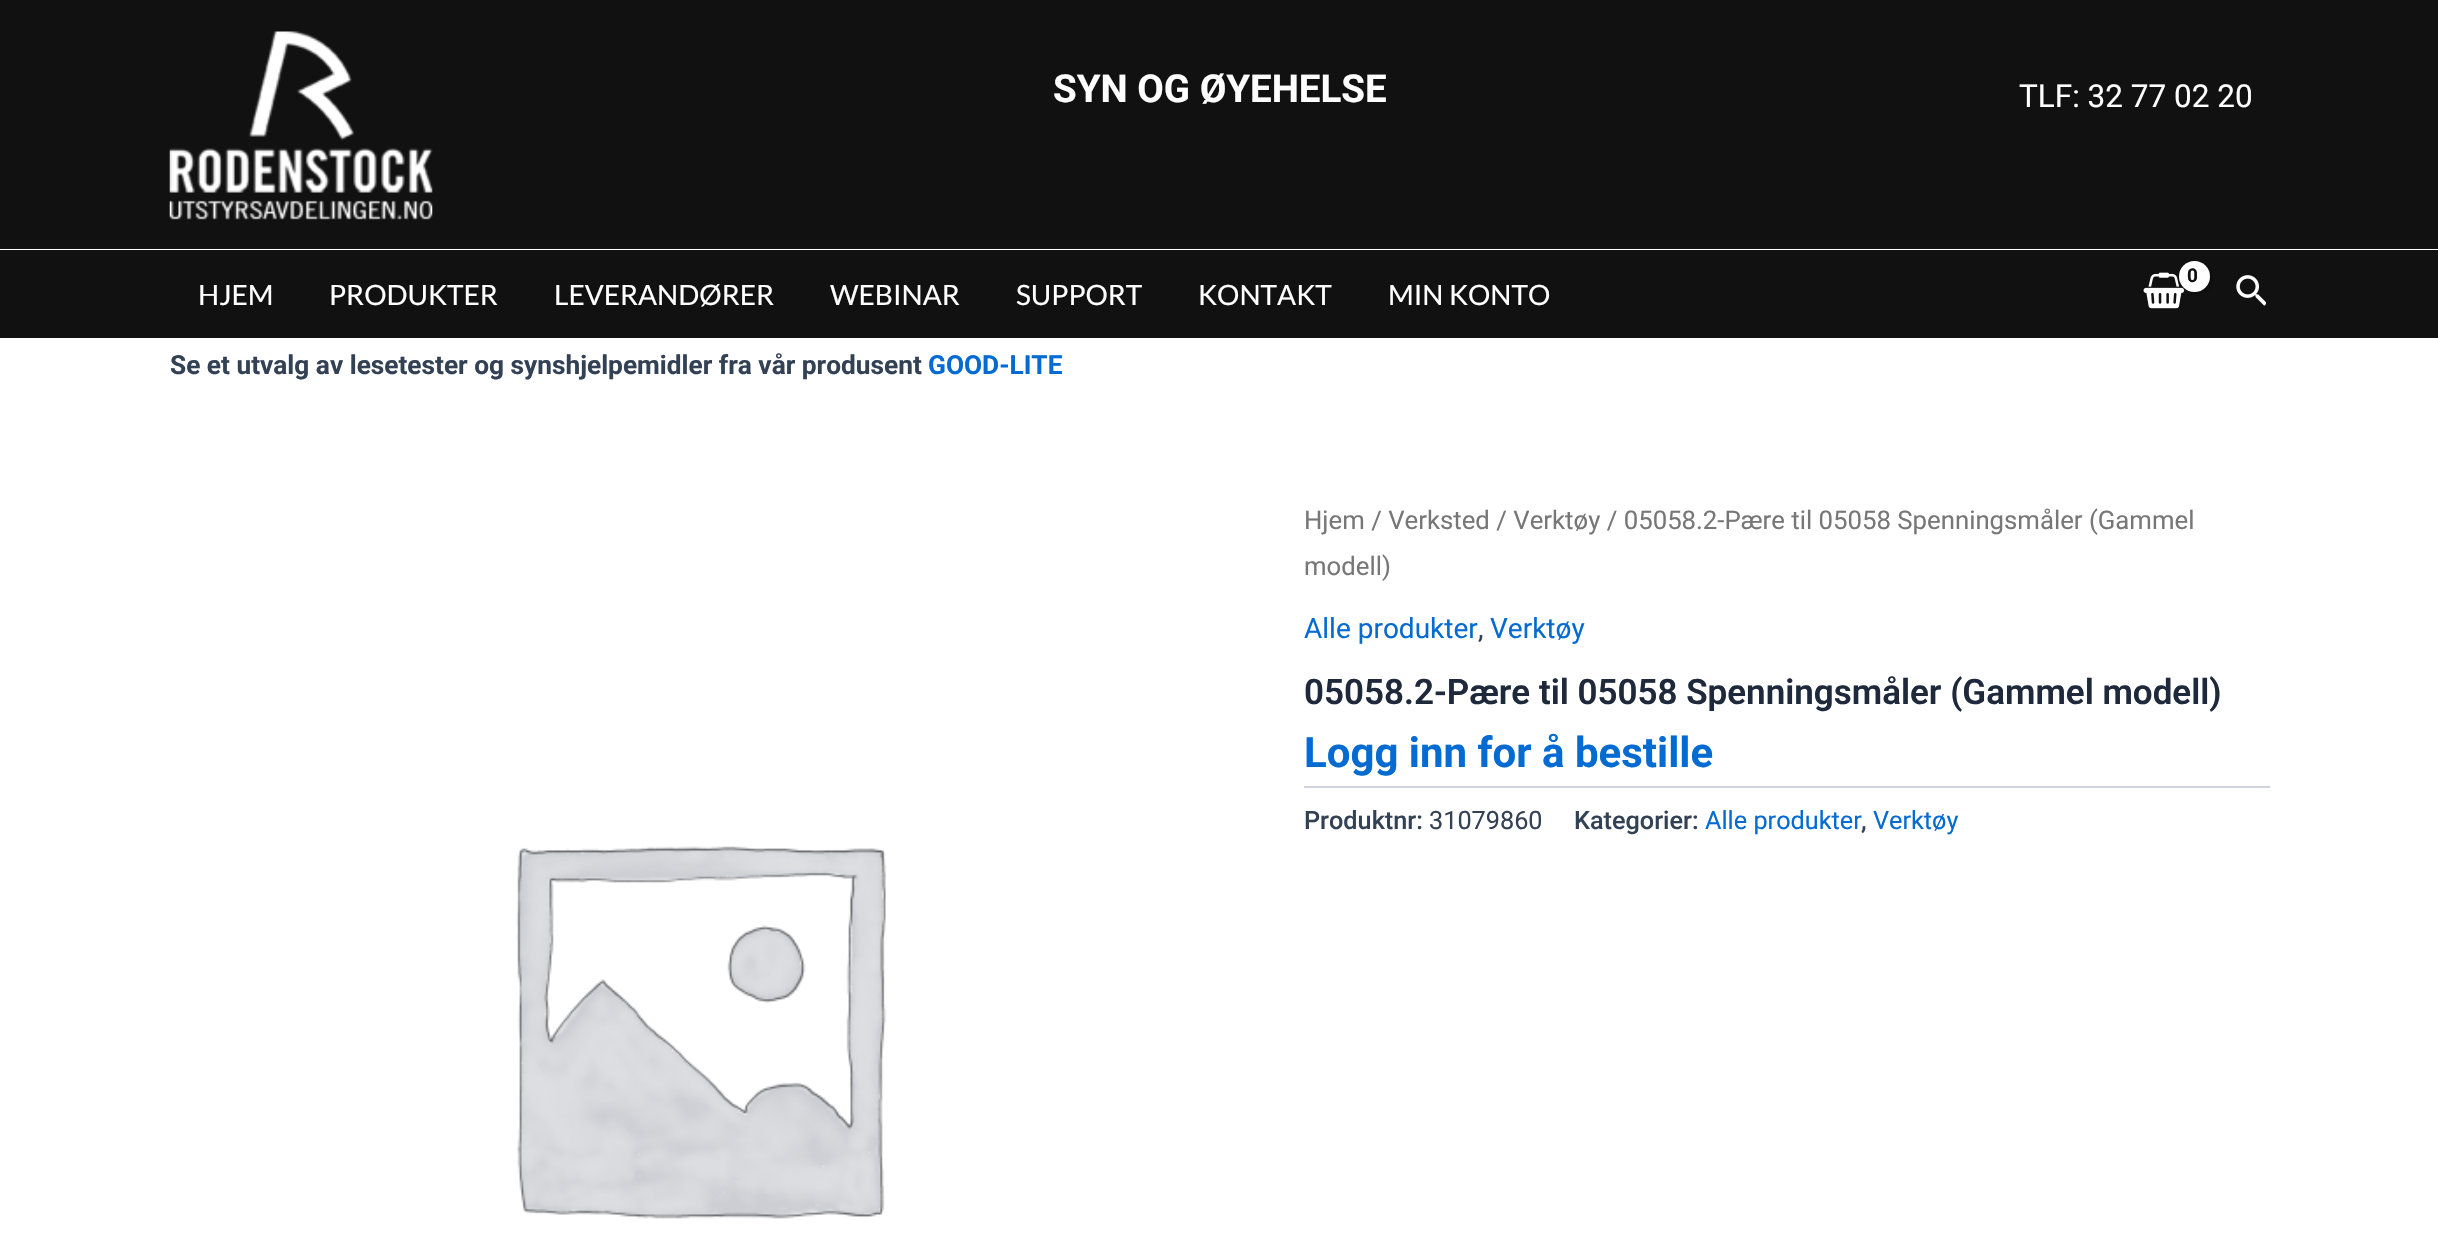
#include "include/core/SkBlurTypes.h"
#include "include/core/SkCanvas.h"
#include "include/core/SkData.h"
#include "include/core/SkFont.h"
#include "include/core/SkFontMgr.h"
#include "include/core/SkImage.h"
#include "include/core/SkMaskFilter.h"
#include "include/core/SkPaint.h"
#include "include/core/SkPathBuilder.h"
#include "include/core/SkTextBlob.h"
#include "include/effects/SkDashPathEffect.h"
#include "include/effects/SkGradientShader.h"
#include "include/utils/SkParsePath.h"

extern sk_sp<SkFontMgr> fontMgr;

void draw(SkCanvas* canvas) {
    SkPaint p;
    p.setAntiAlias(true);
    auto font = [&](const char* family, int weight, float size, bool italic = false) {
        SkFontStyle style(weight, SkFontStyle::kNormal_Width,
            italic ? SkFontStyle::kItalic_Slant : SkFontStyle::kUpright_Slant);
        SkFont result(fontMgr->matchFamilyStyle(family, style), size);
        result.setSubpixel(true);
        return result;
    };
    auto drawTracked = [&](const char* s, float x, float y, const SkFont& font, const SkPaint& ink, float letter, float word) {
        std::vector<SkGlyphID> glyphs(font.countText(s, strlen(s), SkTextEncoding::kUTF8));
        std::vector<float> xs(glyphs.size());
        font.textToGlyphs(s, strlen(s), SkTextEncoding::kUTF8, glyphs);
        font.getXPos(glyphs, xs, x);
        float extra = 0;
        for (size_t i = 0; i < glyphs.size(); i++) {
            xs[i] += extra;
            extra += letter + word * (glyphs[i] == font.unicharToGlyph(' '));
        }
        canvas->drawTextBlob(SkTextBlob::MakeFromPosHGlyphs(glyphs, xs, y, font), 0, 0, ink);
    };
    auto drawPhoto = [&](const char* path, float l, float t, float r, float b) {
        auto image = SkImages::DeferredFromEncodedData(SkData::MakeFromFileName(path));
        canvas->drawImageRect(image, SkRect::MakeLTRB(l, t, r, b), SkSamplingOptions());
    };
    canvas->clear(0xFFFFFFFF);
    p.setColor(0xFF111111);
    canvas->drawRect(SkRect::MakeLTRB(0, 0, 2438, 249), p);
    drawPhoto("media/1.png", 169, 31, 433, 220);
    auto font1 = font("Roboto", 700, 38.5f);
    p.setColor(0xFFFFFFFF);
    canvas->drawString("SYN OG ØYEHELSE", 1053, 102, font1, p);
    auto font2 = font("Roboto", 400, 31.5f);
    canvas->drawString("TLF: 32 77 02 20", 2019, 107, font2, p);
    p.setColor(0xFF111111);
    canvas->drawRect(SkRect::MakeLTRB(0, 250, 2438, 338), p);
    drawPhoto("media/2.png", 2143, 272, 2185, 309);
    p.setColor(0x4D000000);
    p.setMaskFilter(SkMaskFilter::MakeBlur(kNormal_SkBlurStyle, 2.5f));
    canvas->drawRoundRect(SkRect::MakeLTRB(2181, 263, 2212, 294), 15.5f, 15.5f, p);
    p.setMaskFilter(nullptr);
    p.setColor(0xFFFFFFFF);
    canvas->drawCircle(2194.5f, 276.5f, 15.5f, p);
    auto font3 = font("Roboto", 700, 19);
    p.setColor(0xFF111111);
    drawTracked("0", 2187, 282, font3, p, -1, 0);
    drawPhoto("media/3.png", 2236, 275, 2266, 306);
    auto font4 = font("Lato", 400, 28);
    p.setColor(0xFFFFFFFF);
    {
        const struct { const char* s; float x, y; } items[] = {
            {"HJEM", 198, 305},
            {"PRODUKTER", 329, 305},
            {"LEVERANDØRER", 554, 305},
            {"WEBINAR", 830, 305},
            {"SUPPORT", 1016, 305},
            {"KONTAKT", 1198, 305},
            {"MIN KONTO", 1388, 305},
        };
        for (auto [s, x, y] : items) {
            canvas->drawString(s, x, y, font4, p);
        }
    }
    auto font5 = font("Roboto", 700, 26.25f);
    p.setColor(0xFF334155);
    canvas->drawString("Se et utvalg av lesetester og synshjelpemidler fra vår produsent", 170, 374, font5, p);
    p.setColor(0xFF046BD2);
    canvas->drawString("GOOD-LITE", 928, 374, font5, p);
    auto font6 = font("Roboto", 400, 25.75f);
    p.setColor(0xFF777777);
    canvas->drawString("Hjem / Verksted / Verktøy / 05058.2-Pære til 05058 Spenningsmåler (Gammel", 1304, 529, font6, p);
    canvas->drawString("modell)", 1304, 575, font6, p);
    auto font7 = font("Roboto", 400, 28);
    p.setColor(0xFF046BD2);
    canvas->drawString("Alle produkter", 1304, 638, font7, p);
    p.setColor(0xFF334155);
    canvas->drawString(",", 1478, 638, font7, p);
    p.setColor(0xFF046BD2);
    canvas->drawString("Verktøy", 1490, 638, font7, p);
    auto font8 = font("Roboto", 600, 35);
    p.setColor(0xFF1E293B);
    canvas->drawString("05058.2-Pære til 05058 Spenningsmåler (Gammel modell)", 1304, 704, font8, p);
    auto font9 = font("Roboto", 700, 42);
    p.setColor(0xFF046BD2);
    canvas->drawString("Logg inn for å bestille", 1304, 767, font9, p);
    p.setColor(0xFFD1D5DB);
    canvas->drawRect(SkRect::MakeLTRB(1304, 786, 2270, 788), p);
    auto font10 = font("Roboto", 500, 25.25f);
    p.setColor(0xFF334155);
    canvas->drawString("Produktnr:", 1304, 829, font10, p);
    auto font11 = font("Roboto", 400, 25.25f);
    canvas->drawString("31079860", 1429, 829, font11, p);
    canvas->drawString("Kategorier:", 1574, 829, font10, p);
    p.setColor(0xFF046BD2);
    canvas->drawString("Alle produkter", 1705, 829, font11, p);
    p.setColor(0xFF334155);
    canvas->drawString(",", 1861, 829, font10, p);
    p.setColor(0xFF046BD2);
    canvas->drawString("Verktøy", 1873, 829, font11, p);
    drawPhoto("media/4.png", 516, 846, 886, 1219);
}
